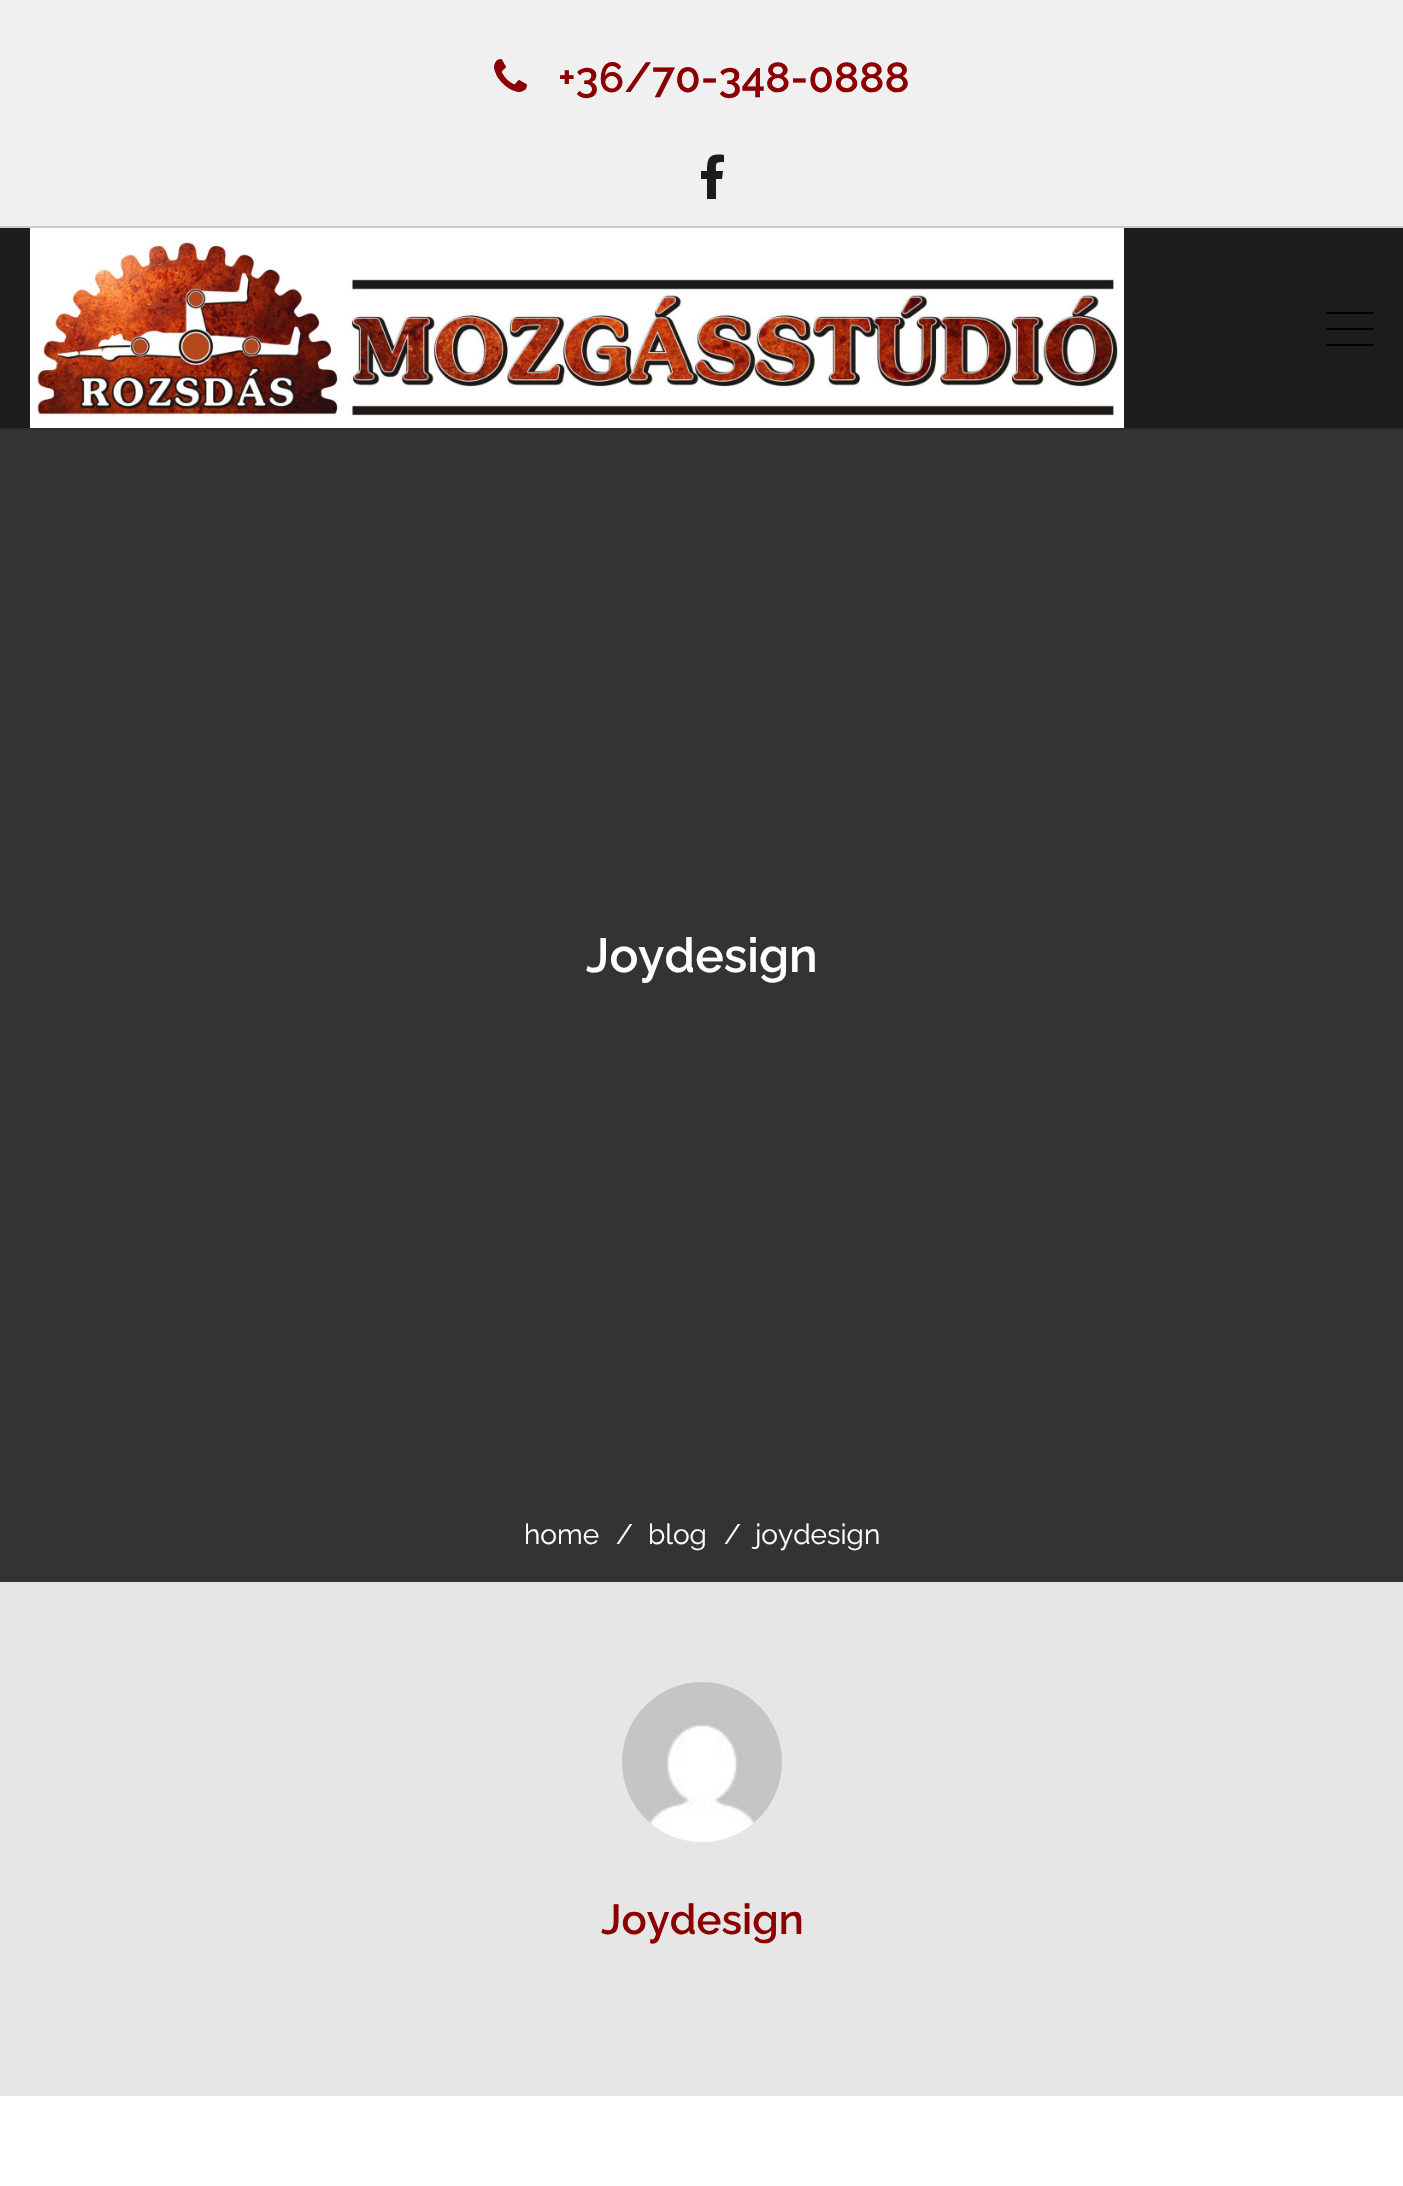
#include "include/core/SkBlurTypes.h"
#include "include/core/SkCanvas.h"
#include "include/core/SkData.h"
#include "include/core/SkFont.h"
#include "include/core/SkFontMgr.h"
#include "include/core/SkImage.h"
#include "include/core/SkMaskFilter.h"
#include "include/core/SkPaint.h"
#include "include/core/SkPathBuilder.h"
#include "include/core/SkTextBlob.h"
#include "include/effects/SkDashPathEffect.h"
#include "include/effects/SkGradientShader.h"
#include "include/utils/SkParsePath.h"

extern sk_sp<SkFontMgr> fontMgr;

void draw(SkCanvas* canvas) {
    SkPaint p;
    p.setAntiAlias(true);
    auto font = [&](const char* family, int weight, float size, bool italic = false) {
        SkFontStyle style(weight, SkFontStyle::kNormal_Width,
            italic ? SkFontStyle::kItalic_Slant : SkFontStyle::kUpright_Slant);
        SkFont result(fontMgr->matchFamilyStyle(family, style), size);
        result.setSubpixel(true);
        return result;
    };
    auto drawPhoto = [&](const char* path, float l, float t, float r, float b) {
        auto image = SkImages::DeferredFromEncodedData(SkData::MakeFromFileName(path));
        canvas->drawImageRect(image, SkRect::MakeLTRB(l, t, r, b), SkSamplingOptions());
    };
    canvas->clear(0xFFFFFFFF);
    p.setColor(0xFFF0F0F0);
    canvas->drawRect(SkRect::MakeLTRB(0, 0, 1403, 226), p);
    drawPhoto("media/1.png", 494, 59, 527, 92);
    auto font1 = font("Raleway", 600, 42);
    p.setColor(0xFF8B0000);
    canvas->drawString("+36/70-348-0888", 558, 92, font1, p);
    p.setColor(0xFF1C1C1C);
    canvas->drawPath(SkPathBuilder().moveTo(724, 155).lineTo(724, 162).cubicTo(715, 162, 716, 163, 716, 171).lineTo(723, 171).lineTo(722, 179).lineTo(716, 179).lineTo(716, 199).lineTo(707, 199).lineTo(707, 179).lineTo(701, 179).lineTo(701, 171).lineTo(707, 171).cubicTo(707, 158, 709, 153, 724, 155).close().detach(), p);
    {
        const struct { float l, t, r, b; SkColor color; } items[] = {
            {0, 226, 1403, 228, 0xFFCBCBCB},
            {0, 428, 1403, 430, 0xFF2D2D2D},
            {0, 228, 1403, 428, 0xFF1C1C1C},
        };
        for (auto [l, t, r, b, color] : items) {
            p.setColor(color);
            canvas->drawRect(SkRect::MakeLTRB(l, t, r, b), p);
        }
    }
    drawPhoto("media/2.png", 30, 228, 1124, 428);
    p.setColor(0xFF000000);
    canvas->drawRoundRect(SkRect::MakeLTRB(1326, 312, 1374, 314), 1, 1, p);
    canvas->drawRoundRect(SkRect::MakeLTRB(1326, 328, 1374, 330), 1, 1, p);
    canvas->drawRoundRect(SkRect::MakeLTRB(1326, 344, 1374, 346), 1, 1, p);
    p.setColor(0xFF333333);
    canvas->drawRect(SkRect::MakeLTRB(0, 430, 1403, 1582), p);
    auto font2 = font("Raleway", 600, 48);
    p.setColor(0xFFFFFFFF);
    canvas->drawString("Joydesign", 586, 972, font2, p);
    auto font3 = font("Raleway", 400, 28);
    {
        const struct { const char* s; float x, y; } items[] = {
            {"home", 524, 1544},
            {"/", 616, 1544},
            {"blog", 648, 1544},
            {"/", 724, 1544},
            {"joydesign", 755, 1544},
        };
        for (auto [s, x, y] : items) {
            canvas->drawString(s, x, y, font3, p);
        }
    }
    p.setColor(0xFFE6E6E6);
    canvas->drawRect(SkRect::MakeLTRB(0, 1582, 1403, 2096), p);
    drawPhoto("media/3.png", 622, 1682, 782, 1842);
    p.setColor(0xFF8B0000);
    canvas->drawString("Joydesign", 601, 1934, font1, p);
}
